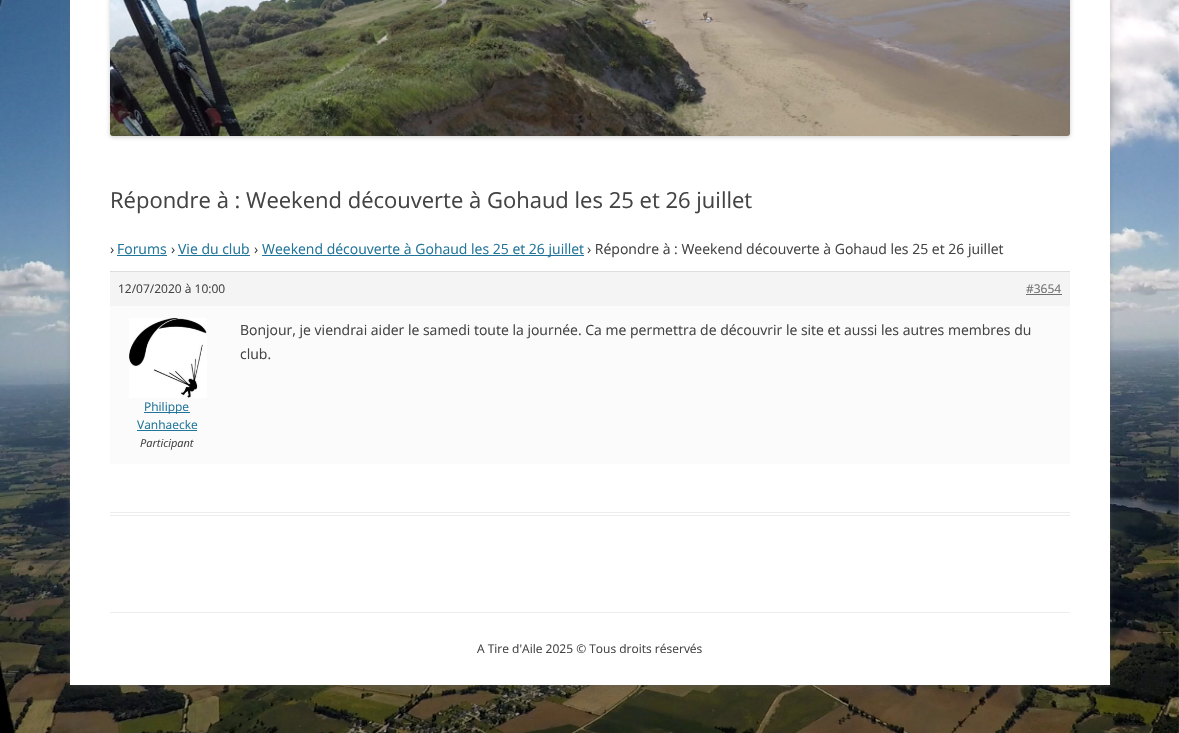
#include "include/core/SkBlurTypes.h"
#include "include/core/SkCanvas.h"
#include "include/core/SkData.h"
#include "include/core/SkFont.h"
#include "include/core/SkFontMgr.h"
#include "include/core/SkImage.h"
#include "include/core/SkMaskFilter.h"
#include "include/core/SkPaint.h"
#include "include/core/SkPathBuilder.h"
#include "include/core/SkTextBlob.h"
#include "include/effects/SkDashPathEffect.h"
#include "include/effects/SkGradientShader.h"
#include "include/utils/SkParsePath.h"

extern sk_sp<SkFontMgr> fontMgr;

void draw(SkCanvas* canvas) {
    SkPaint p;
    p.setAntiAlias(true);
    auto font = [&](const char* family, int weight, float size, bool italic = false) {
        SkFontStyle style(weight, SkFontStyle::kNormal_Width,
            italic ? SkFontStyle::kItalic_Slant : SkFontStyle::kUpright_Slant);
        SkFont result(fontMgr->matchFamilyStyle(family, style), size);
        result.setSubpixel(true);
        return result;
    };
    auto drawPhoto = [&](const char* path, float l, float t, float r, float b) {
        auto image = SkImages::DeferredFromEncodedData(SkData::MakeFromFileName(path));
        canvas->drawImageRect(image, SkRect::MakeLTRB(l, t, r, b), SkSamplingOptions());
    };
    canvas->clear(0xFFFFFFFF);
    drawPhoto("media/1.png", 0, 0, 1179, 733);
    p.setColor(0x4D646464);
    p.setMaskFilter(SkMaskFilter::MakeBlur(kNormal_SkBlurStyle, 3));
    canvas->drawRect(SkRect::MakeLTRB(70, -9, 1110, 687), p);
    p.setMaskFilter(nullptr);
    p.setColor(0xFFFFFFFF);
    canvas->drawRect(SkRect::MakeLTRB(70, 0, 1110, 685), p);
    p.setColor(0x33000000);
    p.setMaskFilter(SkMaskFilter::MakeBlur(kNormal_SkBlurStyle, 2));
    canvas->drawRoundRect(SkRect::MakeLTRB(110, -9, 1070, 137), 3, 3, p);
    p.setMaskFilter(nullptr);
    drawPhoto("media/2.png", 110, 0, 1070, 136);
    p.setColor(0xFFEDEDED);
    canvas->drawRect(SkRect::MakeLTRB(110, 512, 1070, 513), p);
    canvas->drawRect(SkRect::MakeLTRB(110, 515, 1070, 516), p);
    auto font1 = font("Open Sans", 400, 22);
    p.setColor(0xFF444444);
    canvas->drawString("Répondre à : Weekend découverte à Gohaud les 25 et 26 juillet", 110, 208, font1, p);
    auto font2 = font("Open Sans", 400, 14);
    canvas->drawString("›", 110, 254, font2, p);
    p.setColor(0xFF21759B);
    canvas->drawString("Forums", 117, 254, font2, p);
    canvas->drawRect(SkRect::MakeLTRB(117, 255, 167, 256), p);
    p.setColor(0xFF444444);
    canvas->drawString("›", 171, 254, font2, p);
    p.setColor(0xFF21759B);
    canvas->drawString("Vie du club", 178, 254, font2, p);
    canvas->drawRect(SkRect::MakeLTRB(178, 255, 250, 256), p);
    p.setColor(0xFF444444);
    canvas->drawString("›", 254, 254, font2, p);
    p.setColor(0xFF21759B);
    canvas->drawRect(SkRect::MakeLTRB(262, 255, 584, 256), p);
    canvas->drawString("Weekend découverte à Gohaud les 25 et 26 juillet", 262, 254, font2, p);
    p.setColor(0xFF444444);
    canvas->drawString("› Répondre à : Weekend découverte à Gohaud les 25 et 26 juillet", 587, 254, font2, p);
    p.setColor(0xFFF4F4F4);
    canvas->drawRect(SkRect::MakeLTRB(110, 272, 1070, 306), p);
    p.setColor(0xFFDDDDDD);
    canvas->drawRect(SkRect::MakeLTRB(110, 271, 1070, 272), p);
    auto font3 = font("Open Sans", 400, 12);
    p.setColor(0xFF444444);
    canvas->drawString("12/07/2020 à 10:00", 118, 293, font3, p);
    p.setColor(0xFF707070);
    canvas->drawString("#3654", 1026, 293, font3, p);
    canvas->drawRect(SkRect::MakeLTRB(1026, 294, 1062, 295), p);
    p.setColor(0xFFFBFBFB);
    canvas->drawRect(SkRect::MakeLTRB(110, 306, 1070, 464), p);
    p.setColor(0xFF444444);
    canvas->drawString("Bonjour, je viendrai aider le samedi toute la journée. Ca me permettra de découvrir le site et aussi les autres membres du", 240, 335, font2, p);
    canvas->drawString("club.", 240, 359, font2, p);
    drawPhoto("media/3.png", 129, 318, 207, 398);
    p.setColor(0xFF21759B);
    canvas->drawRect(SkRect::MakeLTRB(144, 412, 190, 413), p);
    canvas->drawString("Philippe", 144, 411, font3, p);
    canvas->drawString("Vanhaecke", 137, 429, font3, p);
    canvas->drawRect(SkRect::MakeLTRB(137, 430, 197, 431), p);
    auto font4 = font("Open Sans", 400, 11, true);
    p.setColor(0xFF444444);
    canvas->drawString("Participant", 140, 447, font4, p);
    p.setColor(0xFFEDEDED);
    canvas->drawRect(SkRect::MakeLTRB(110, 612, 1070, 613), p);
    p.setColor(0xFF444444);
    canvas->drawString("A Tire d'Aile 2025 © Tous droits réservés", 477, 653, font3, p);
}
